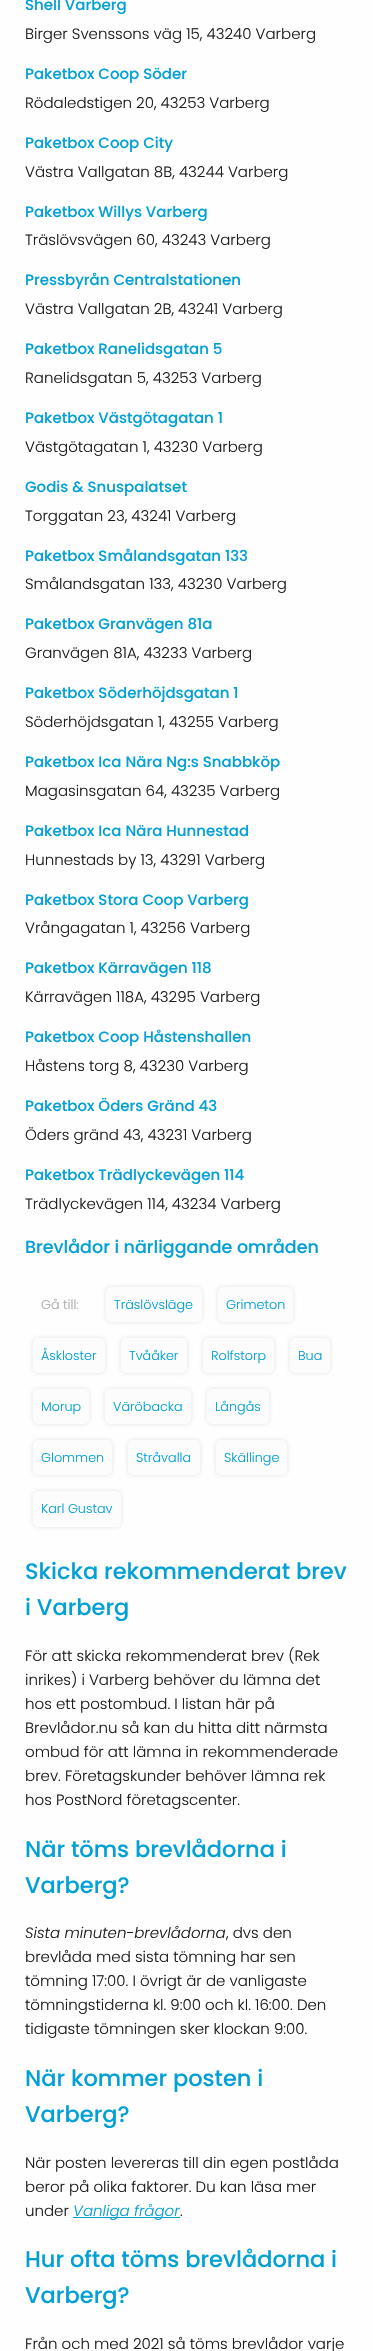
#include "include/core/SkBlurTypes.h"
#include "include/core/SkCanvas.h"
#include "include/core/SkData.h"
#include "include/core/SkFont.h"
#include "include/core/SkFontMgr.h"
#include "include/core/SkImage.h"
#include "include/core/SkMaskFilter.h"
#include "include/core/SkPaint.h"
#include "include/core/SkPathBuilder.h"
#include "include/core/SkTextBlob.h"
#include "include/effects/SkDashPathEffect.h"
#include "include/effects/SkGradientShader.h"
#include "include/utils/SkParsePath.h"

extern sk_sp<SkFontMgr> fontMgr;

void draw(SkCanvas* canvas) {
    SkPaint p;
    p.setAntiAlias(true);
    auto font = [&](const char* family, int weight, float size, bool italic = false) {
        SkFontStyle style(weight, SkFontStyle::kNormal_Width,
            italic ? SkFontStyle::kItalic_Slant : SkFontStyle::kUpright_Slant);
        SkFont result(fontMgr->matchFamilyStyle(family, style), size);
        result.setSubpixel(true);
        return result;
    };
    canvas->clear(0xFFFEFEFE);
    auto font1 = font("Poppins", 500, 15);
    p.setColor(0xFF01A0D6);
    canvas->drawString("Shell Varberg", 25, 10, font1, p);
    auto font2 = font("Poppins", 300, 15);
    p.setColor(0xFF1D1D1D);
    canvas->drawString("Birger Svenssons väg 15, 43240 Varberg", 25, 39, font2, p);
    p.setColor(0xFF01A0D6);
    canvas->drawString("Paketbox Coop Söder", 25, 79, font1, p);
    p.setColor(0xFF1D1D1D);
    canvas->drawString("Rödaledstigen 20, 43253 Varberg", 25, 108, font2, p);
    p.setColor(0xFF01A0D6);
    canvas->drawString("Paketbox Coop City", 25, 148, font1, p);
    p.setColor(0xFF1D1D1D);
    canvas->drawString("Västra Vallgatan 8B, 43244 Varberg", 25, 177, font2, p);
    p.setColor(0xFF01A0D6);
    canvas->drawString("Paketbox Willys Varberg", 25, 217, font1, p);
    p.setColor(0xFF1D1D1D);
    canvas->drawString("Träslövsvägen 60, 43243 Varberg", 25, 245, font2, p);
    p.setColor(0xFF01A0D6);
    canvas->drawString("Pressbyrån Centralstationen", 25, 285, font1, p);
    p.setColor(0xFF1D1D1D);
    canvas->drawString("Västra Vallgatan 2B, 43241 Varberg", 25, 314, font2, p);
    p.setColor(0xFF01A0D6);
    canvas->drawString("Paketbox Ranelidsgatan 5", 25, 354, font1, p);
    p.setColor(0xFF1D1D1D);
    canvas->drawString("Ranelidsgatan 5, 43253 Varberg", 25, 383, font2, p);
    p.setColor(0xFF01A0D6);
    canvas->drawString("Paketbox Västgötagatan 1", 25, 423, font1, p);
    p.setColor(0xFF1D1D1D);
    canvas->drawString("Västgötagatan 1, 43230 Varberg", 25, 452, font2, p);
    p.setColor(0xFF01A0D6);
    canvas->drawString("Godis & Snuspalatset", 25, 492, font1, p);
    p.setColor(0xFF1D1D1D);
    canvas->drawString("Torggatan 23, 43241 Varberg", 25, 521, font2, p);
    p.setColor(0xFF01A0D6);
    canvas->drawString("Paketbox Smålandsgatan 133", 25, 561, font1, p);
    p.setColor(0xFF1D1D1D);
    canvas->drawString("Smålandsgatan 133, 43230 Varberg", 25, 589, font2, p);
    p.setColor(0xFF01A0D6);
    canvas->drawString("Paketbox Granvägen 81a", 25, 629, font1, p);
    p.setColor(0xFF1D1D1D);
    canvas->drawString("Granvägen 81A, 43233 Varberg", 25, 658, font2, p);
    p.setColor(0xFF01A0D6);
    canvas->drawString("Paketbox Söderhöjdsgatan 1", 25, 698, font1, p);
    p.setColor(0xFF1D1D1D);
    canvas->drawString("Söderhöjdsgatan 1, 43255 Varberg", 25, 727, font2, p);
    p.setColor(0xFF01A0D6);
    canvas->drawString("Paketbox Ica Nära Ng:s Snabbköp", 25, 767, font1, p);
    p.setColor(0xFF1D1D1D);
    canvas->drawString("Magasinsgatan 64, 43235 Varberg", 25, 796, font2, p);
    p.setColor(0xFF01A0D6);
    canvas->drawString("Paketbox Ica Nära Hunnestad", 25, 836, font1, p);
    p.setColor(0xFF1D1D1D);
    canvas->drawString("Hunnestads by 13, 43291 Varberg", 25, 865, font2, p);
    p.setColor(0xFF01A0D6);
    canvas->drawString("Paketbox Stora Coop Varberg", 25, 905, font1, p);
    p.setColor(0xFF1D1D1D);
    canvas->drawString("Vrångagatan 1, 43256 Varberg", 25, 933, font2, p);
    p.setColor(0xFF01A0D6);
    canvas->drawString("Paketbox Kärravägen 118", 25, 973, font1, p);
    p.setColor(0xFF1D1D1D);
    canvas->drawString("Kärravägen 118A, 43295 Varberg", 25, 1002, font2, p);
    p.setColor(0xFF01A0D6);
    canvas->drawString("Paketbox Coop Håstenshallen", 25, 1042, font1, p);
    p.setColor(0xFF1D1D1D);
    canvas->drawString("Håstens torg 8, 43230 Varberg", 25, 1071, font2, p);
    p.setColor(0xFF01A0D6);
    canvas->drawString("Paketbox Öders Gränd 43", 25, 1111, font1, p);
    p.setColor(0xFF1D1D1D);
    canvas->drawString("Öders gränd 43, 43231 Varberg", 25, 1140, font2, p);
    p.setColor(0xFF01A0D6);
    canvas->drawString("Paketbox Trädlyckevägen 114", 25, 1180, font1, p);
    p.setColor(0xFF1D1D1D);
    canvas->drawString("Trädlyckevägen 114, 43234 Varberg", 25, 1209, font2, p);
    auto font3 = font("Poppins", 500, 17.5f);
    p.setColor(0xFF01A0D6);
    canvas->drawString("Brevlådor i närliggande områden", 25, 1253, font3, p);
    auto font4 = font("Poppins", 300, 12.75f);
    p.setColor(0xFFA9A9A9);
    canvas->drawString("Gå till:", 41, 1309, font4, p);
    p.setColor(0x80C8C8C8);
    p.setMaskFilter(SkMaskFilter::MakeBlur(kNormal_SkBlurStyle, 2.5f));
    canvas->drawRoundRect(SkRect::MakeLTRB(106, 1287, 202, 1322), 5, 5, p);
    p.setMaskFilter(nullptr);
    p.setColor(0xFFFCFCFC);
    canvas->drawRoundRect(SkRect::MakeLTRB(106, 1287, 202, 1322), 5, 5, p);
    p.setColor(0xFF01A0D6);
    canvas->drawString("Träslövsläge", 114, 1309, font4, p);
    p.setColor(0x80C8C8C8);
    p.setMaskFilter(SkMaskFilter::MakeBlur(kNormal_SkBlurStyle, 2.5f));
    canvas->drawRoundRect(SkRect::MakeLTRB(218, 1287, 293, 1322), 5, 5, p);
    p.setMaskFilter(nullptr);
    p.setColor(0xFFFCFCFC);
    canvas->drawRoundRect(SkRect::MakeLTRB(218, 1287, 293, 1322), 5, 5, p);
    p.setColor(0xFF01A0D6);
    canvas->drawString("Grimeton", 226, 1309, font4, p);
    p.setColor(0x80C8C8C8);
    p.setMaskFilter(SkMaskFilter::MakeBlur(kNormal_SkBlurStyle, 2.5f));
    canvas->drawRoundRect(SkRect::MakeLTRB(33, 1338, 105, 1373), 5, 5, p);
    p.setMaskFilter(nullptr);
    p.setColor(0xFFFCFCFC);
    canvas->drawRoundRect(SkRect::MakeLTRB(33, 1338, 105, 1373), 5, 5, p);
    p.setColor(0xFF01A0D6);
    canvas->drawString("Åskloster", 41, 1360, font4, p);
    p.setColor(0x80C8C8C8);
    p.setMaskFilter(SkMaskFilter::MakeBlur(kNormal_SkBlurStyle, 2.5f));
    canvas->drawRoundRect(SkRect::MakeLTRB(121, 1338, 187, 1373), 5, 5, p);
    p.setMaskFilter(nullptr);
    p.setColor(0xFFFCFCFC);
    canvas->drawRoundRect(SkRect::MakeLTRB(121, 1338, 187, 1373), 5, 5, p);
    p.setColor(0xFF01A0D6);
    canvas->drawString("Tvååker", 129, 1360, font4, p);
    p.setColor(0x80C8C8C8);
    p.setMaskFilter(SkMaskFilter::MakeBlur(kNormal_SkBlurStyle, 2.5f));
    canvas->drawRoundRect(SkRect::MakeLTRB(203, 1338, 274, 1373), 5, 5, p);
    p.setMaskFilter(nullptr);
    p.setColor(0xFFFCFCFC);
    canvas->drawRoundRect(SkRect::MakeLTRB(203, 1338, 274, 1373), 5, 5, p);
    p.setColor(0xFF01A0D6);
    canvas->drawString("Rolfstorp", 211, 1360, font4, p);
    p.setColor(0x80C8C8C8);
    p.setMaskFilter(SkMaskFilter::MakeBlur(kNormal_SkBlurStyle, 2.5f));
    canvas->drawRoundRect(SkRect::MakeLTRB(290, 1338, 330, 1373), 5, 5, p);
    p.setMaskFilter(nullptr);
    p.setColor(0xFFFCFCFC);
    canvas->drawRoundRect(SkRect::MakeLTRB(290, 1338, 330, 1373), 5, 5, p);
    p.setColor(0xFF01A0D6);
    canvas->drawString("Bua", 298, 1360, font4, p);
    p.setColor(0x80C8C8C8);
    p.setMaskFilter(SkMaskFilter::MakeBlur(kNormal_SkBlurStyle, 2.5f));
    canvas->drawRoundRect(SkRect::MakeLTRB(33, 1389, 89, 1424), 5, 5, p);
    p.setMaskFilter(nullptr);
    p.setColor(0xFFFCFCFC);
    canvas->drawRoundRect(SkRect::MakeLTRB(33, 1389, 89, 1424), 5, 5, p);
    p.setColor(0xFF01A0D6);
    canvas->drawString("Morup", 41, 1411, font4, p);
    p.setColor(0x80C8C8C8);
    p.setMaskFilter(SkMaskFilter::MakeBlur(kNormal_SkBlurStyle, 2.5f));
    canvas->drawRoundRect(SkRect::MakeLTRB(105, 1389, 191, 1424), 5, 5, p);
    p.setMaskFilter(nullptr);
    p.setColor(0xFFFCFCFC);
    canvas->drawRoundRect(SkRect::MakeLTRB(105, 1389, 191, 1424), 5, 5, p);
    p.setColor(0xFF01A0D6);
    canvas->drawString("Väröbacka", 113, 1411, font4, p);
    p.setColor(0x80C8C8C8);
    p.setMaskFilter(SkMaskFilter::MakeBlur(kNormal_SkBlurStyle, 2.5f));
    canvas->drawRoundRect(SkRect::MakeLTRB(207, 1389, 269, 1424), 5, 5, p);
    p.setMaskFilter(nullptr);
    p.setColor(0xFFFCFCFC);
    canvas->drawRoundRect(SkRect::MakeLTRB(207, 1389, 269, 1424), 5, 5, p);
    p.setColor(0xFF01A0D6);
    canvas->drawString("Långås", 215, 1411, font4, p);
    p.setColor(0x80C8C8C8);
    p.setMaskFilter(SkMaskFilter::MakeBlur(kNormal_SkBlurStyle, 2.5f));
    canvas->drawRoundRect(SkRect::MakeLTRB(33, 1440, 112, 1475), 5, 5, p);
    p.setMaskFilter(nullptr);
    p.setColor(0xFFFCFCFC);
    canvas->drawRoundRect(SkRect::MakeLTRB(33, 1440, 112, 1475), 5, 5, p);
    p.setColor(0xFF01A0D6);
    canvas->drawString("Glommen", 41, 1462, font4, p);
    p.setColor(0x80C8C8C8);
    p.setMaskFilter(SkMaskFilter::MakeBlur(kNormal_SkBlurStyle, 2.5f));
    canvas->drawRoundRect(SkRect::MakeLTRB(128, 1440, 200, 1475), 5, 5, p);
    p.setMaskFilter(nullptr);
    p.setColor(0xFFFCFCFC);
    canvas->drawRoundRect(SkRect::MakeLTRB(128, 1440, 200, 1475), 5, 5, p);
    p.setColor(0xFF01A0D6);
    canvas->drawString("Stråvalla", 136, 1462, font4, p);
    p.setColor(0x80C8C8C8);
    p.setMaskFilter(SkMaskFilter::MakeBlur(kNormal_SkBlurStyle, 2.5f));
    canvas->drawRoundRect(SkRect::MakeLTRB(216, 1440, 287, 1475), 5, 5, p);
    p.setMaskFilter(nullptr);
    p.setColor(0xFFFCFCFC);
    canvas->drawRoundRect(SkRect::MakeLTRB(216, 1440, 287, 1475), 5, 5, p);
    p.setColor(0xFF01A0D6);
    canvas->drawString("Skällinge", 224, 1462, font4, p);
    p.setColor(0x80C8C8C8);
    p.setMaskFilter(SkMaskFilter::MakeBlur(kNormal_SkBlurStyle, 2.5f));
    canvas->drawRoundRect(SkRect::MakeLTRB(33, 1491, 121, 1527), 5, 5, p);
    p.setMaskFilter(nullptr);
    p.setColor(0xFFFCFCFC);
    canvas->drawRoundRect(SkRect::MakeLTRB(33, 1491, 121, 1527), 5, 5, p);
    p.setColor(0xFF01A0D6);
    canvas->drawString("Karl Gustav", 41, 1513, font4, p);
    auto font5 = font("Poppins", 500, 22.5f);
    canvas->drawString("Skicka rekommenderat brev", 25, 1579, font5, p);
    canvas->drawString("i Varberg", 25, 1615, font5, p);
    p.setColor(0xFF1D1D1D);
    {
        const struct { const char* s; float x, y; } items[] = {
            {"För att skicka rekommenderat brev (Rek", 25, 1661},
            {"inrikes) i Varberg behöver du lämna det", 25, 1685},
            {"hos ett postombud. I listan här på", 25, 1709},
            {"Brevlådor.nu så kan du hitta ditt närmsta", 25, 1733},
            {"ombud för att lämna in rekommenderade", 25, 1757},
            {"brev. Företagskunder behöver lämna rek", 25, 1781},
            {"hos PostNord företagscenter.", 25, 1805},
        };
        for (auto [s, x, y] : items) {
            canvas->drawString(s, x, y, font2, p);
        }
    }
    p.setColor(0xFF01A0D6);
    canvas->drawString("När töms brevlådorna i", 25, 1857, font5, p);
    canvas->drawString("Varberg?", 25, 1893, font5, p);
    auto font6 = font("Poppins", 300, 15, true);
    p.setColor(0xFF1D1D1D);
    canvas->drawString("Sista minuten-brevlådorna", 25, 1938, font6, p);
    {
        const struct { const char* s; float x, y; } items[] = {
            {", dvs den", 226, 1938},
            {"brevlåda med sista tömning har sen", 25, 1962},
            {"tömning 17:00. I övrigt är de vanligaste", 25, 1986},
            {"tömningstiderna kl. 9:00 och kl. 16:00. Den", 25, 2010},
            {"tidigaste tömningen sker klockan 9:00.", 25, 2034},
        };
        for (auto [s, x, y] : items) {
            canvas->drawString(s, x, y, font2, p);
        }
    }
    p.setColor(0xFF01A0D6);
    canvas->drawString("När kommer posten i", 25, 2086, font5, p);
    canvas->drawString("Varberg?", 25, 2122, font5, p);
    p.setColor(0xFF1D1D1D);
    {
        const struct { const char* s; float x, y; } items[] = {
            {"När posten levereras till din egen postlåda", 25, 2168},
            {"beror på olika faktorer. Du kan läsa mer", 25, 2192},
            {"under", 25, 2216},
        };
        for (auto [s, x, y] : items) {
            canvas->drawString(s, x, y, font2, p);
        }
    }
    p.setColor(0xFF01A0D6);
    canvas->drawRect(SkRect::MakeLTRB(73, 2217, 180, 2218), p);
    canvas->drawString("Vanliga frågor", 73, 2216, font6, p);
    p.setColor(0xFF1D1D1D);
    canvas->drawString(".", 180, 2216, font2, p);
    p.setColor(0xFF01A0D6);
    canvas->drawString("Hur ofta töms brevlådorna i", 25, 2267, font5, p);
    canvas->drawString("Varberg?", 25, 2303, font5, p);
    p.setColor(0xFF1D1D1D);
    canvas->drawString("Från och med 2021 så töms brevlådor varje", 25, 2349, font2, p);
}
